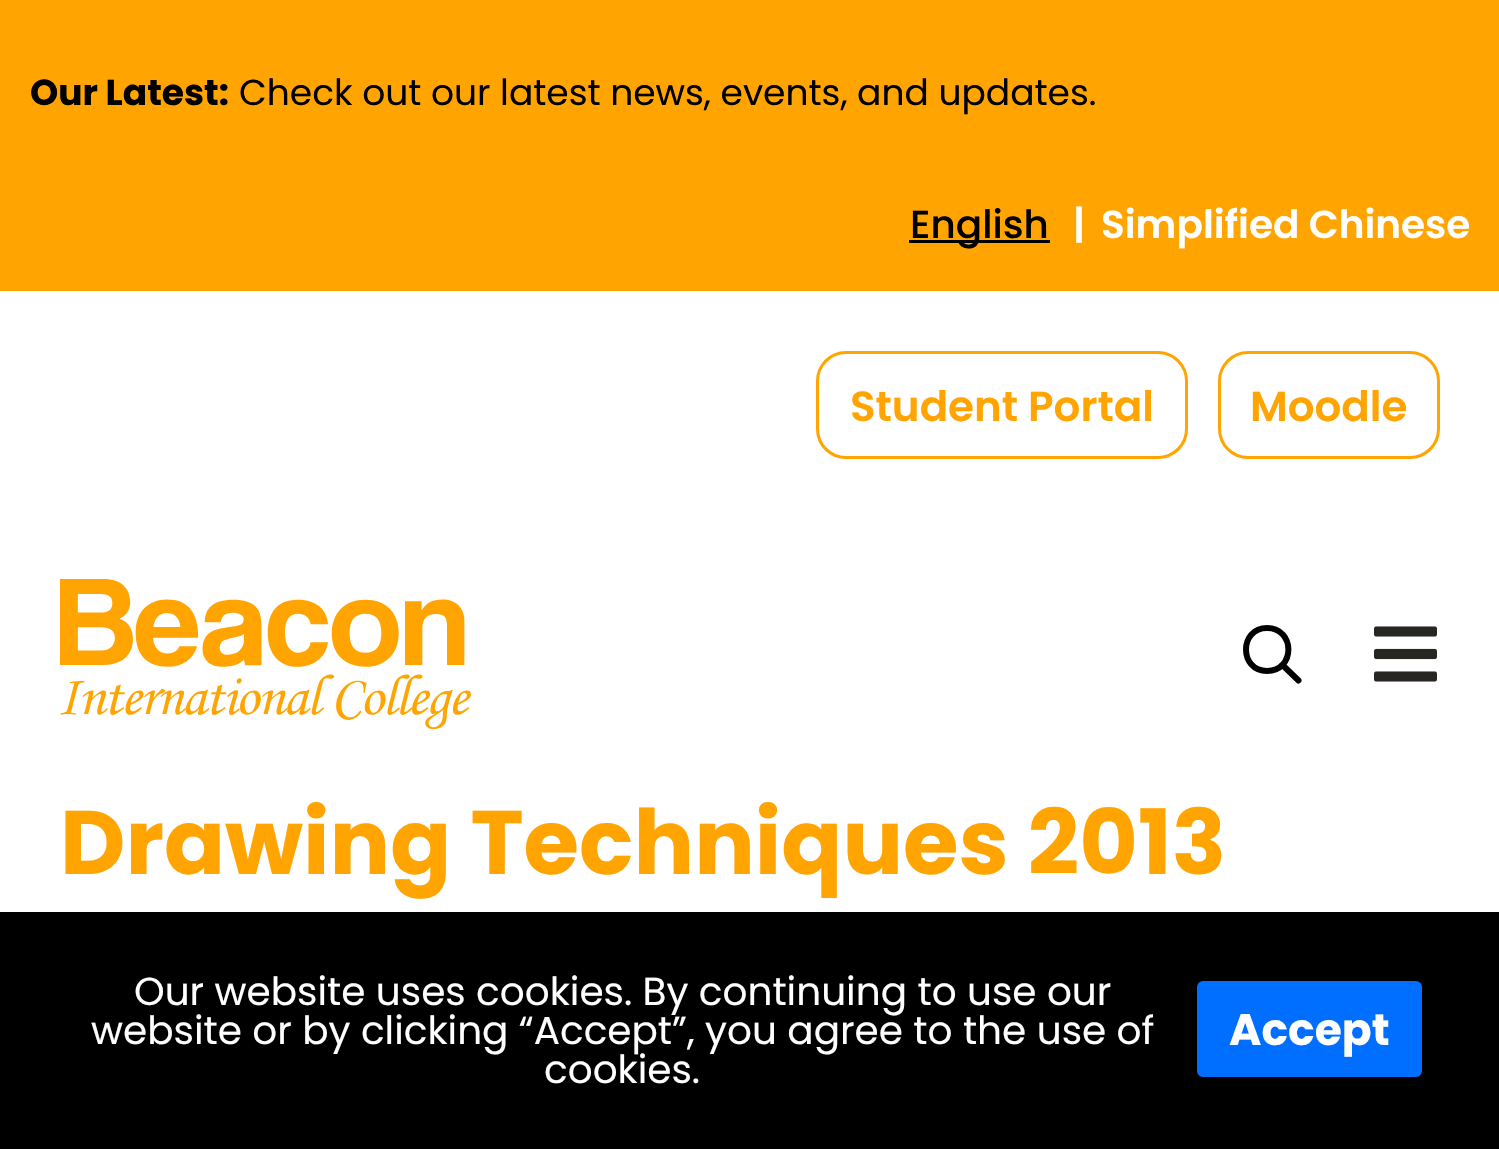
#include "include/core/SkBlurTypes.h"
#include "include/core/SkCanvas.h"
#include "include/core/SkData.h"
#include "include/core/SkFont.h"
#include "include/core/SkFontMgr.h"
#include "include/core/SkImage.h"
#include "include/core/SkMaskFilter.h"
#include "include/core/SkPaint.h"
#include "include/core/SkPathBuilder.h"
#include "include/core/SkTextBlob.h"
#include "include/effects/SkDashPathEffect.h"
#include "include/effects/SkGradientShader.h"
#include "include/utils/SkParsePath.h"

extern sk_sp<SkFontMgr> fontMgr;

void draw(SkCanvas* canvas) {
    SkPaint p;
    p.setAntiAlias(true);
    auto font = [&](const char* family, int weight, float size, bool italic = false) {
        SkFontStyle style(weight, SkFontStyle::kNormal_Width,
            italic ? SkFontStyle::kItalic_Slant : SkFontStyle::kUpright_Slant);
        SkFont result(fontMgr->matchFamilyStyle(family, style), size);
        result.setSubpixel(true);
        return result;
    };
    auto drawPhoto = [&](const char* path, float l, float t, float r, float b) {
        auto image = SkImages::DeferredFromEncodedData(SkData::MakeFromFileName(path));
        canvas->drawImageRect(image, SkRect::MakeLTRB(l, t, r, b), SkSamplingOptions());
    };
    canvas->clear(0xFFFFFFFF);
    p.setColor(0xFFFFA400);
    canvas->drawRect(SkRect::MakeLTRB(0, 0, 1499, 291), p);
    auto font1 = font("Poppins", 700, 36);
    p.setColor(0xFF000000);
    canvas->drawString("Our Latest:", 30, 105, font1, p);
    auto font2 = font("Poppins", 400, 36);
    canvas->drawString("Check out our latest news, events, and updates.", 239, 105, font2, p);
    canvas->drawRect(SkRect::MakeLTRB(909, 240, 1050, 243), p);
    auto font3 = font("Poppins", 500, 39);
    canvas->drawString("English", 910, 238, font3, p);
    auto font4 = font("Poppins", 600, 39);
    p.setColor(0xFFFFFFFF);
    canvas->drawString("|", 1073, 238, font4, p);
    canvas->drawString("Simplified Chinese", 1101, 238, font4, p);
    p.setStyle(SkPaint::kStroke_Style);
    p.setStrokeWidth(3);
    p.setColor(0xFFFFA400);
    canvas->drawRoundRect(SkRect::MakeLTRB(817.5f, 352.5f, 1186.5f, 457.5f), 28.5f, 28.5f, p);
    auto font5 = font("Poppins", 600, 42);
    p.setStyle(SkPaint::kFill_Style);
    canvas->drawString("Student Portal", 850, 421, font5, p);
    p.setStyle(SkPaint::kStroke_Style);
    canvas->drawRoundRect(SkRect::MakeLTRB(1219.5f, 352.5f, 1438.5f, 457.5f), 28.5f, 28.5f, p);
    p.setStyle(SkPaint::kFill_Style);
    canvas->drawString("Moodle", 1250, 421, font5, p);
    drawPhoto("media/1.png", 60, 579, 471, 729);
    p.setStyle(SkPaint::kStroke_Style);
    p.setStrokeWidth(6);
    p.setColor(0xFF000000);
    canvas->drawPath(SkPathBuilder().moveTo(1267, 628).cubicTo(1239, 628, 1239, 671, 1267, 671).cubicTo(1295.5f, 671, 1295.5f, 628, 1267, 628).close().detach(), p);
    p.setStrokeCap(SkPaint::kRound_Cap);
    canvas->drawPath(SkPathBuilder().moveTo(1298.5f, 680.5f).lineTo(1282.5f, 665).detach(), p);
    drawPhoto("media/2.png", 1374, 626, 1437, 682);
    auto font6 = font("Poppins", 700, 90);
    p.setStyle(SkPaint::kFill_Style);
    p.setColor(0xFFFFA400);
    canvas->drawString("Drawing Techniques 2013", 60, 874, font6, p);
    p.setColor(0xFF000000);
    canvas->drawRect(SkRect::MakeLTRB(0, 912, 1499, 1149), p);
    auto font7 = font("Poppins", 400, 39);
    p.setColor(0xFFFFFFFF);
    {
        const struct { const char* s; float x, y; } items[] = {
            {"Our website uses cookies. By continuing to use our", 134, 1005},
            {"website or by clicking “Accept”, you agree to the use of", 91, 1044},
            {"cookies.", 544, 1083},
        };
        for (auto [s, x, y] : items) {
            canvas->drawString(s, x, y, font7, p);
        }
    }
    p.setColor(0xFF006EFF);
    canvas->drawRoundRect(SkRect::MakeLTRB(1198.5f, 982.5f, 1420.5f, 1075.5f), 4.5f, 4.5f, p);
    p.setStyle(SkPaint::kStroke_Style);
    p.setStrokeWidth(3);
    p.setStrokeCap(SkPaint::kButt_Cap);
    canvas->drawRoundRect(SkRect::MakeLTRB(1198.5f, 982.5f, 1420.5f, 1075.5f), 4.5f, 4.5f, p);
    auto font8 = font("Poppins", 700, 44);
    p.setStyle(SkPaint::kFill_Style);
    p.setColor(0xFFFFFFFF);
    canvas->drawString("Accept", 1229, 1045, font8, p);
}
